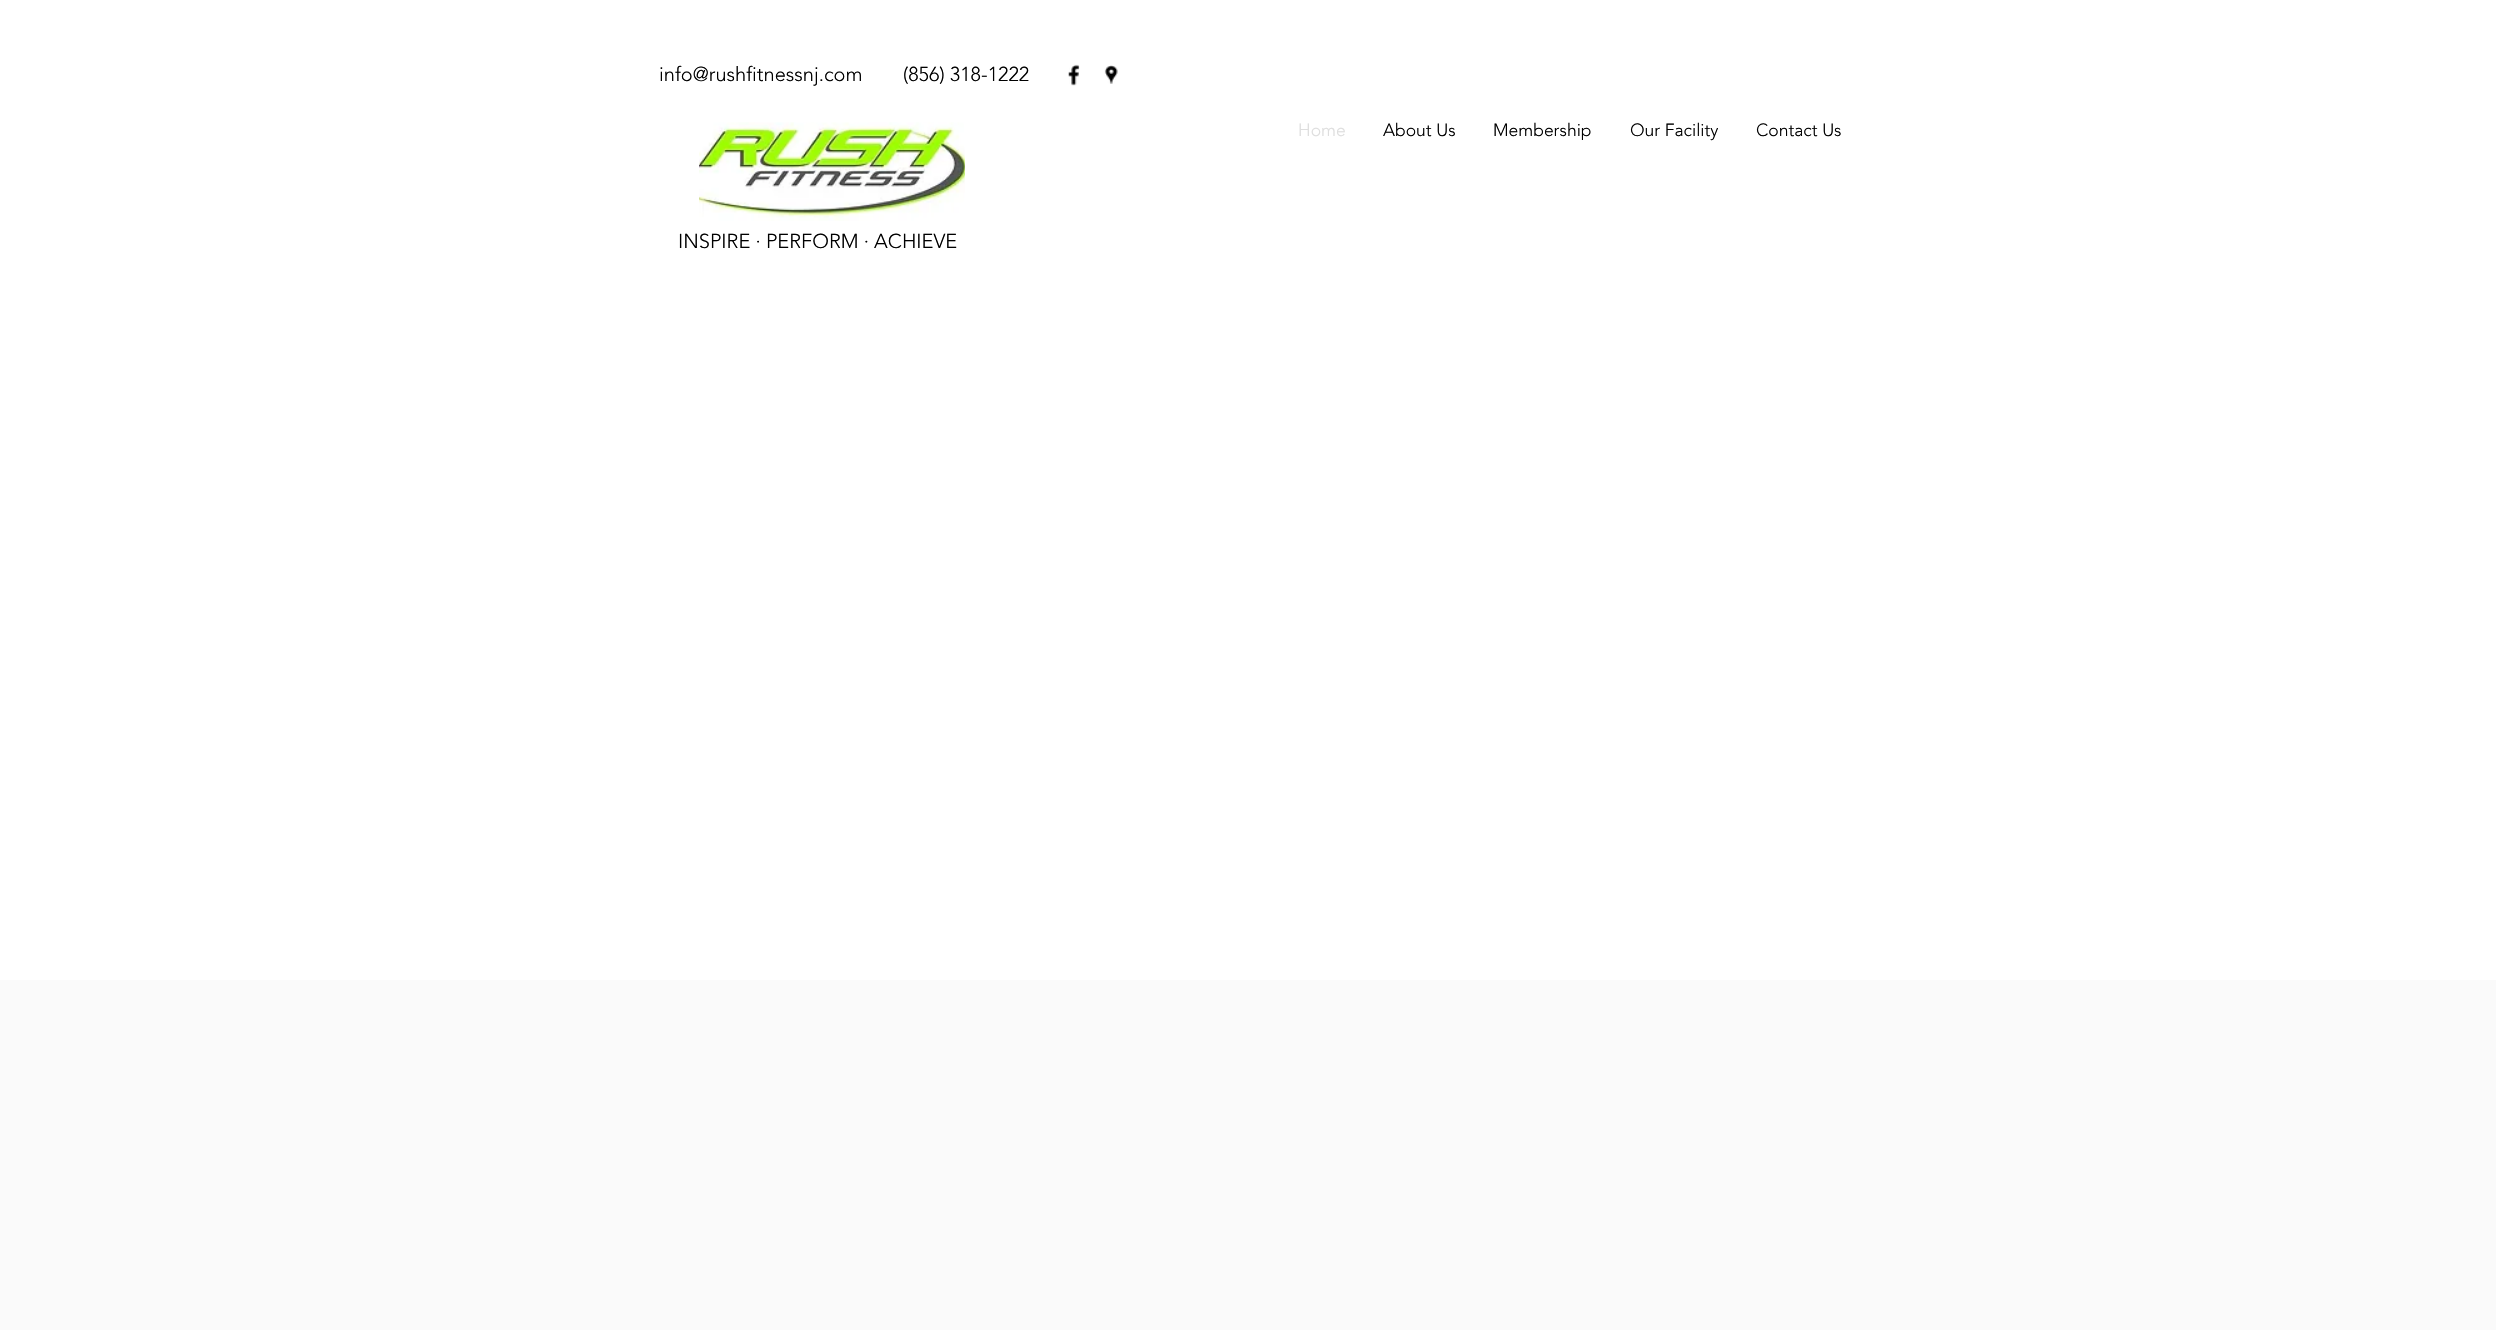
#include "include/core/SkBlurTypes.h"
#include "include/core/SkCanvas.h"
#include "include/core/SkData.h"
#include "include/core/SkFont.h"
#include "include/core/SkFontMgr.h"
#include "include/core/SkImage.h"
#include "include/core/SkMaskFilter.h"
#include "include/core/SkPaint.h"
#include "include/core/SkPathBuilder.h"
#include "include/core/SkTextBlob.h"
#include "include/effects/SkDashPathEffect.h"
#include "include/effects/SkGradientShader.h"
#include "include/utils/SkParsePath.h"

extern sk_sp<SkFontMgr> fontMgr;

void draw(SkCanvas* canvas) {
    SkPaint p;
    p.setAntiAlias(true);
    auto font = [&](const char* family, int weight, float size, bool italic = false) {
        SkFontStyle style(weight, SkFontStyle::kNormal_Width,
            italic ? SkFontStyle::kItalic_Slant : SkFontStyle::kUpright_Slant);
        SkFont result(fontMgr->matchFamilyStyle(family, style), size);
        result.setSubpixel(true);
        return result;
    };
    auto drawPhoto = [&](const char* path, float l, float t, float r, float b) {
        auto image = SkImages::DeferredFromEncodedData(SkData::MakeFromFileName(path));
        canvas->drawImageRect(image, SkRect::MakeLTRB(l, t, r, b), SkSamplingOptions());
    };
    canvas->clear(0xFFFFFFFF);
    auto font1 = font("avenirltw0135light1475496", 300, 20);
    p.setColor(0xFF000000);
    canvas->drawString("info@rushfitnessnj.com", 659, 81, font1, p);
    canvas->drawString("(856) 318-1222", 903, 81, font1, p);
    drawPhoto("media/1.png", 1068, 64, 1080, 86);
    drawPhoto("media/2.png", 1104, 65, 1118, 84);
    drawPhoto("media/3.png", 699, 122, 965, 221);
    auto font2 = font("avenirltw0135light1475496", 300, 17.5f);
    p.setColor(0xFFDEDEDE);
    canvas->drawString("Home", 1298, 136, font2, p);
    p.setColor(0xFF000000);
    {
        const struct { const char* s; float x, y; } items[] = {
            {"About Us", 1383, 136},
            {"Membership", 1493, 136},
            {"Our Facility", 1630, 136},
            {"Contact Us", 1756, 136},
        };
        for (auto [s, x, y] : items) {
            canvas->drawString(s, x, y, font2, p);
        }
    }
    canvas->drawString("INSPIRE · PERFORM · ACHIEVE", 678, 248, font1, p);
    p.setColor(0xFFFAFAFA);
    canvas->drawRect(SkRect::MakeLTRB(0, 980, 2496, 1330), p);
}
